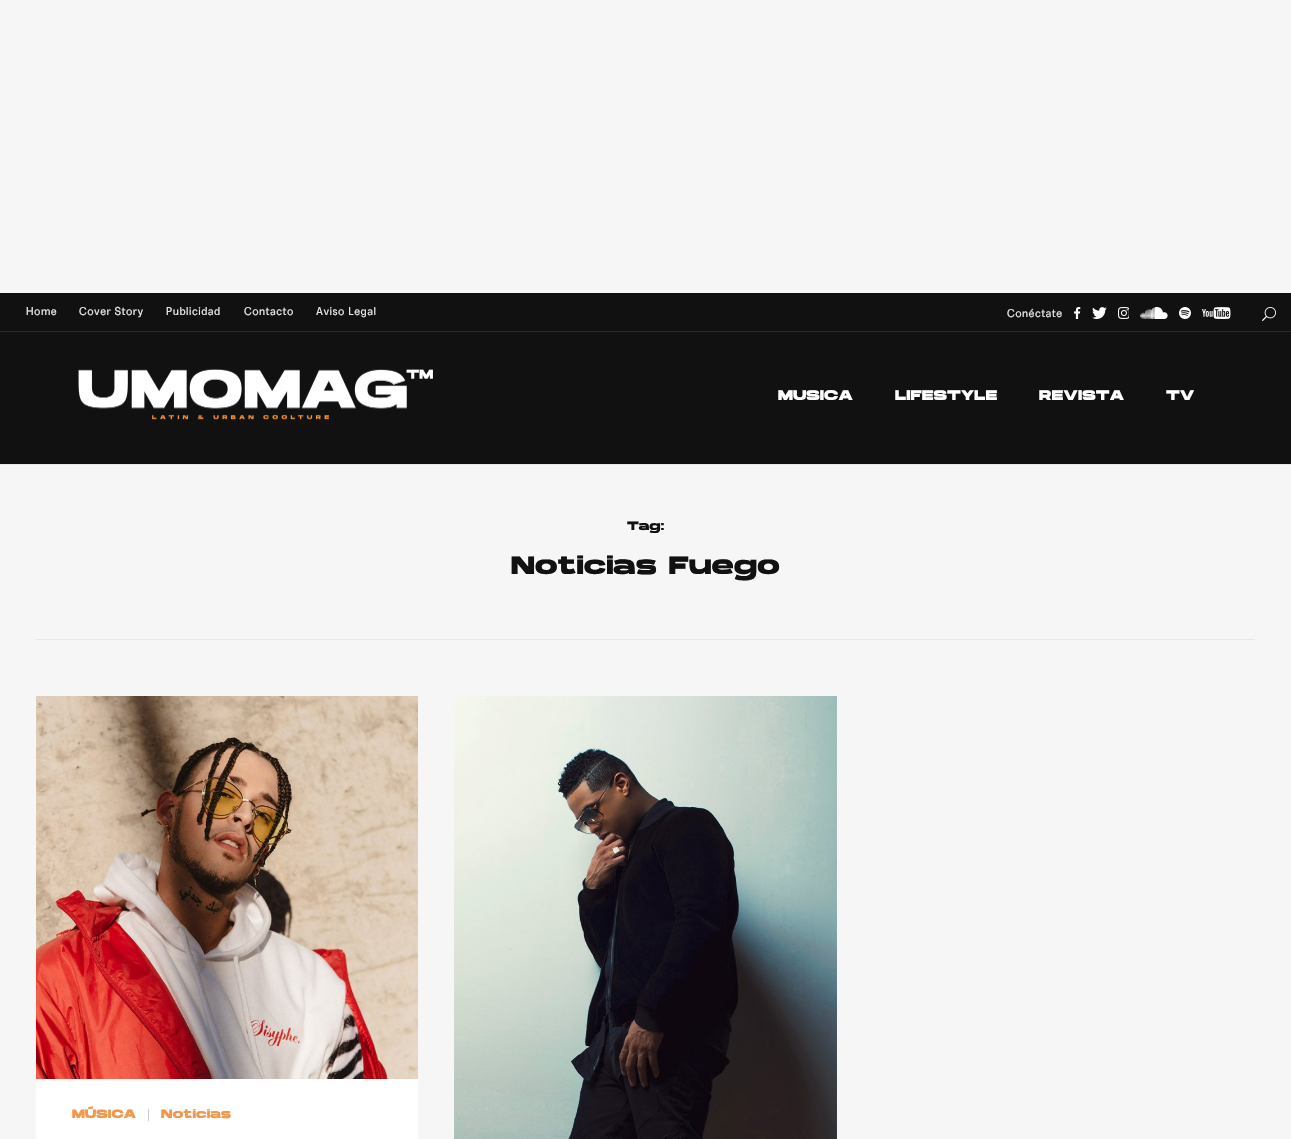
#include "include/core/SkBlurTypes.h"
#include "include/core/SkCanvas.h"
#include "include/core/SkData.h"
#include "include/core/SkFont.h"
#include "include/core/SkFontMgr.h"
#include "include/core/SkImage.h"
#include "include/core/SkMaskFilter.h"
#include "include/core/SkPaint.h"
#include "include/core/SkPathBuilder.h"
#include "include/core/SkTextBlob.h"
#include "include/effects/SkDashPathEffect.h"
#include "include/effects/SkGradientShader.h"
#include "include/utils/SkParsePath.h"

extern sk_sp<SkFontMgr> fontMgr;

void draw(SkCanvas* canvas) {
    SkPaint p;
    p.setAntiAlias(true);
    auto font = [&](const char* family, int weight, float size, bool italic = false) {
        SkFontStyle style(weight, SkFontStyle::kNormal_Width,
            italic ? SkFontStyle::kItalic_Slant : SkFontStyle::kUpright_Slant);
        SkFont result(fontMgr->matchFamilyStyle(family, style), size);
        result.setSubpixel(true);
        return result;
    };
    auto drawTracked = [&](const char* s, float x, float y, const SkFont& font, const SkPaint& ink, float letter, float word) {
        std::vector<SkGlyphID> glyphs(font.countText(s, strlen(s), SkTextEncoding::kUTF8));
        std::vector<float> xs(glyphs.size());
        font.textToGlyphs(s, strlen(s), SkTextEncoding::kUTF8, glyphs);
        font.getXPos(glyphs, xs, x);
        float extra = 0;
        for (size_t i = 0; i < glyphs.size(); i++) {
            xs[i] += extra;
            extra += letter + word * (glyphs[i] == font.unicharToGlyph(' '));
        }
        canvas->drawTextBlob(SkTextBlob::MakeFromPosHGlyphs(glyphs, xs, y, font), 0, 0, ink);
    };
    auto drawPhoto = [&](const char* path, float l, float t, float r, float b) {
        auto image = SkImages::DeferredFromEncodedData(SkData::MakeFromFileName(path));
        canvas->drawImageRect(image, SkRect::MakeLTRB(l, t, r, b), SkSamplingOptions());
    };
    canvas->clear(0xFFF6F6F6);
    p.setColor(0xFF111111);
    canvas->drawRect(SkRect::MakeLTRB(0, 293, 1291, 331), p);
    p.setColor(0xFF2B2B2B);
    canvas->drawRect(SkRect::MakeLTRB(0, 331, 1291, 332), p);
    auto font1 = font("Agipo", 400, 11);
    p.setColor(0xFFE8E8E8);
    {
        const struct { const char* s; float x, y; } items[] = {
            {"Home", 26, 315},
            {"Cover Story", 79, 315},
            {"Publicidad", 166, 315},
            {"Contacto", 244, 315},
            {"Aviso Legal", 316, 315},
            {"Conéctate", 1007, 317},
        };
        for (auto [s, x, y] : items) {
            drawTracked(s, x, y, font1, p, 0.5f, 0);
        }
    }
    drawPhoto("media/1.png", 1074, 307, 1081, 319);
    drawPhoto("media/2.png", 1092, 307, 1107, 319);
    drawPhoto("media/3.png", 1118, 307, 1129, 319);
    drawPhoto("media/4.png", 1140, 307, 1168, 319);
    drawPhoto("media/5.png", 1179, 307, 1191, 319);
    drawPhoto("media/6.png", 1202, 307, 1231, 319);
    drawPhoto("media/7.png", 1262, 307, 1276, 321);
    p.setColor(0xFF111111);
    canvas->drawRect(SkRect::MakeLTRB(0, 332, 1291, 464), p);
    p.setColor(0xFFE8E8E8);
    canvas->drawRect(SkRect::MakeLTRB(0, 464, 1291, 465), p);
    drawPhoto("media/8.png", 78, 369, 433, 420);
    auto font2 = font("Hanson", 700, 14);
    p.setColor(0xFFFFFFFF);
    {
        const struct { const char* s; float x, y; } items[] = {
            {"MUSICA", 778, 400},
            {"LIFESTYLE", 895, 400},
            {"REVISTA", 1039, 400},
            {"TV", 1166, 400},
        };
        for (auto [s, x, y] : items) {
            canvas->drawString(s, x, y, font2, p);
        }
    }
    p.setColor(0xFFE8E8E8);
    canvas->drawRect(SkRect::MakeLTRB(36, 639, 1255, 640), p);
    auto font3 = font("Hanson", 700, 12);
    p.setColor(0xFF111111);
    canvas->drawString("Tag:", 627, 530, font3, p);
    auto font4 = font("Hanson", 700, 25);
    canvas->drawString("Noticias Fuego", 511, 574, font4, p);
    p.setColor(0xFFFFFFFF);
    canvas->drawRect(SkRect::MakeLTRB(36, 1079, 418, 1139), p);
    drawPhoto("media/9.png", 36, 696, 418, 1079);
    p.setColor(0xFFF2984C);
    canvas->drawString("MÚSICA", 72, 1118, font3, p);
    p.setColor(0xFFCCCCCC);
    canvas->drawRect(SkRect::MakeLTRB(148, 1109, 149, 1121), p);
    p.setColor(0xFFF2984C);
    canvas->drawString("Noticias", 161, 1118, font3, p);
    drawPhoto("media/10.png", 454, 696, 837, 1139);
}
